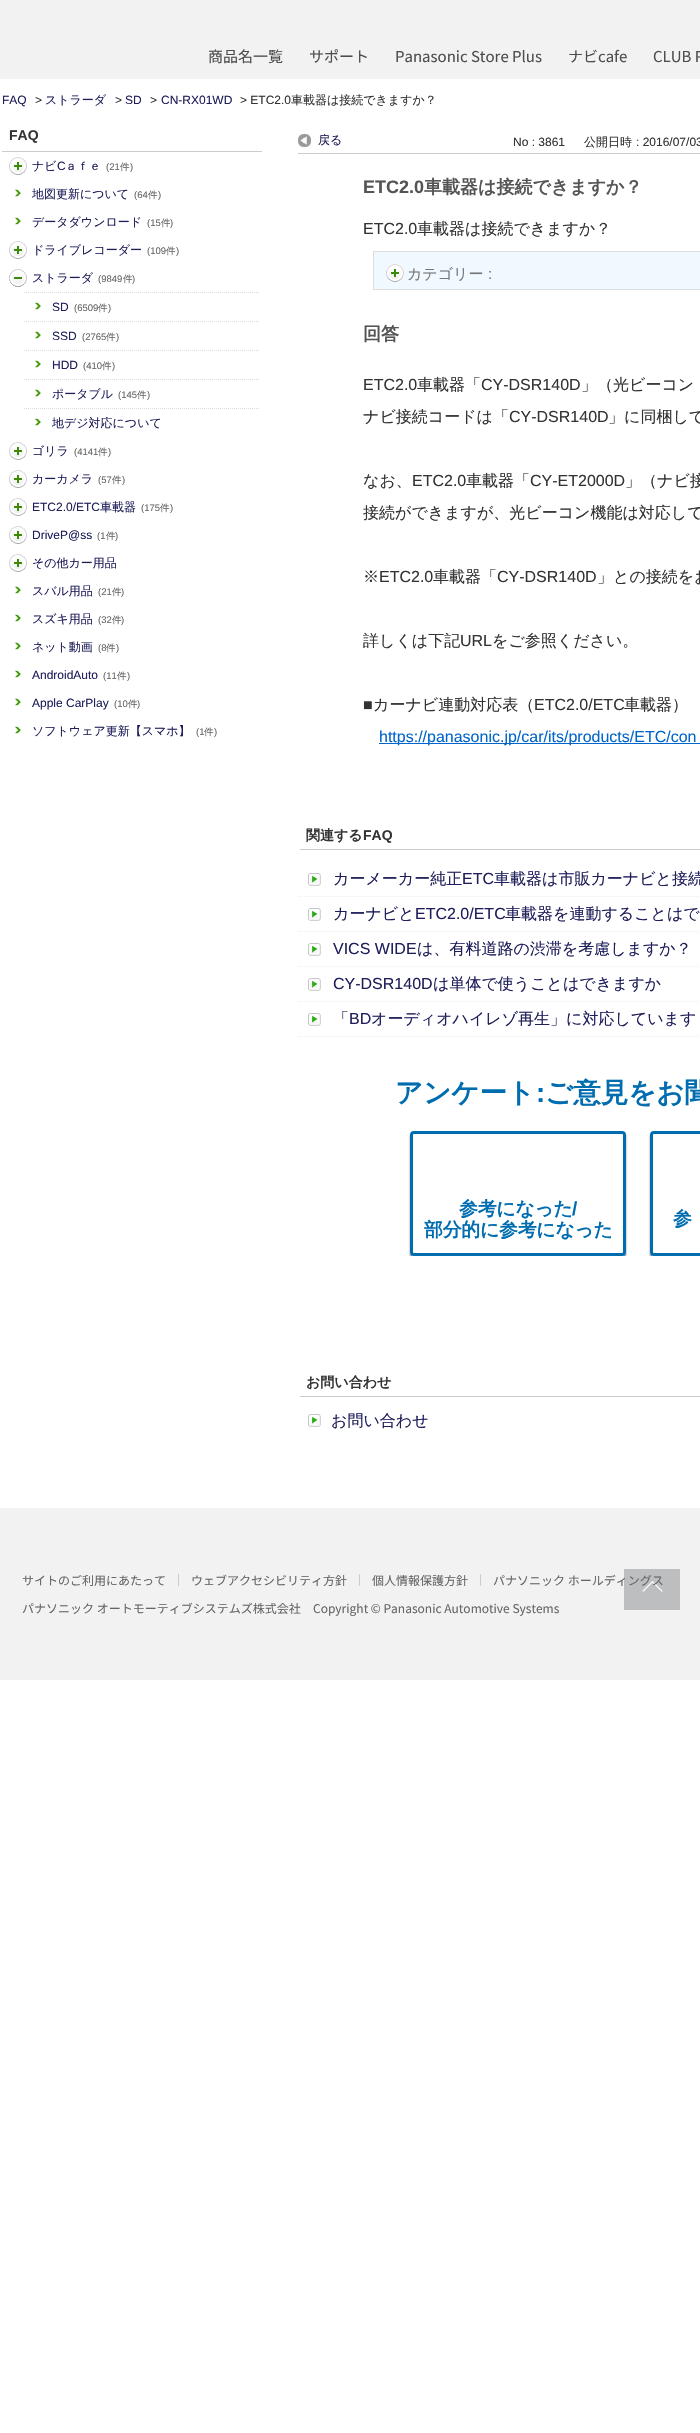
#include "include/core/SkBlurTypes.h"
#include "include/core/SkCanvas.h"
#include "include/core/SkData.h"
#include "include/core/SkFont.h"
#include "include/core/SkFontMgr.h"
#include "include/core/SkImage.h"
#include "include/core/SkMaskFilter.h"
#include "include/core/SkPaint.h"
#include "include/core/SkPathBuilder.h"
#include "include/core/SkTextBlob.h"
#include "include/effects/SkDashPathEffect.h"
#include "include/effects/SkGradientShader.h"
#include "include/utils/SkParsePath.h"

extern sk_sp<SkFontMgr> fontMgr;

void draw(SkCanvas* canvas) {
    SkPaint p;
    p.setAntiAlias(true);
    auto font = [&](const char* family, int weight, float size, bool italic = false) {
        SkFontStyle style(weight, SkFontStyle::kNormal_Width,
            italic ? SkFontStyle::kItalic_Slant : SkFontStyle::kUpright_Slant);
        SkFont result(fontMgr->matchFamilyStyle(family, style), size);
        result.setSubpixel(true);
        return result;
    };
    auto drawTracked = [&](const char* s, float x, float y, const SkFont& font, const SkPaint& ink, float letter, float word) {
        std::vector<SkGlyphID> glyphs(font.countText(s, strlen(s), SkTextEncoding::kUTF8));
        std::vector<float> xs(glyphs.size());
        font.textToGlyphs(s, strlen(s), SkTextEncoding::kUTF8, glyphs);
        font.getXPos(glyphs, xs, x);
        float extra = 0;
        for (size_t i = 0; i < glyphs.size(); i++) {
            xs[i] += extra;
            extra += letter + word * (glyphs[i] == font.unicharToGlyph(' '));
        }
        canvas->drawTextBlob(SkTextBlob::MakeFromPosHGlyphs(glyphs, xs, y, font), 0, 0, ink);
    };
    auto drawPhoto = [&](const char* path, float l, float t, float r, float b) {
        auto image = SkImages::DeferredFromEncodedData(SkData::MakeFromFileName(path));
        canvas->drawImageRect(image, SkRect::MakeLTRB(l, t, r, b), SkSamplingOptions());
    };
    canvas->clear(0xFFFFFFFF);
    p.setColor(0xFFF2F2F2);
    canvas->drawRect(SkRect::MakeLTRB(0, 0, 700, 79), p);
    auto font1 = font("Noto Sans JP", 100, 15);
    p.setColor(0xFF4D4D4D);
    {
        const struct { const char* s; float x, y; } items[] = {
            {"商品名一覧", 208, 62},
            {"サポート", 309, 62},
            {"Panasonic Store Plus", 395, 62},
            {"ナビcafe", 568, 62},
            {"CLUB P", 653, 62},
        };
        for (auto [s, x, y] : items) {
            canvas->drawString(s, x, y, font1, p);
        }
    }
    auto font2 = font("Liberation Sans", 400, 12);
    p.setColor(0xFF1E1E5A);
    canvas->drawString("FAQ", 2, 104, font2, p);
    p.setColor(0xFF333333);
    canvas->drawString(">", 35, 104, font2, p);
    auto font3 = font("WenQuanYi Zen Hei", 500, 12);
    p.setColor(0xFF1E1E5A);
    canvas->drawString("ストラーダ", 45, 104, font3, p);
    p.setColor(0xFF333333);
    canvas->drawString(">", 115, 104, font2, p);
    p.setColor(0xFF1E1E5A);
    canvas->drawString("SD", 125, 104, font2, p);
    p.setColor(0xFF333333);
    canvas->drawString(">", 150, 104, font2, p);
    p.setColor(0xFF1E1E5A);
    canvas->drawString("CN-RX01WD", 161, 104, font2, p);
    p.setColor(0xFF333333);
    canvas->drawString("> ETC2.0", 240, 104, font2, p);
    canvas->drawString("車載器は接続できますか？", 291, 104, font3, p);
    p.setColor(0xFFCCCCCC);
    canvas->drawRect(SkRect::MakeLTRB(2, 151, 262, 152), p);
    auto font4 = font("Liberation Sans", 700, 14);
    p.setColor(0xFF333333);
    canvas->drawString("FAQ", 9, 140, font4, p);
    drawPhoto("media/1.png", 9, 157, 27, 175);
    p.setColor(0xFF1E1E5A);
    canvas->drawString("ナビ", 32, 170, font3, p);
    canvas->drawString("C", 57, 170, font2, p);
    canvas->drawString("ａｆｅ", 65, 170, font3, p);
    auto font5 = font("Liberation Sans", 400, 9.5f);
    p.setColor(0xFF666666);
    canvas->drawString("(21", 106, 170, font5, p);
    auto font6 = font("WenQuanYi Zen Hei", 500, 9.5f);
    canvas->drawString("件", 120, 170, font6, p);
    canvas->drawString(")", 130, 170, font5, p);
    drawPhoto("media/2.png", 15, 189, 21, 197);
    p.setColor(0xFF1E1E5A);
    canvas->drawString("地図更新について", 32, 198, font3, p);
    p.setColor(0xFF666666);
    canvas->drawString("(64", 134, 198, font5, p);
    canvas->drawString("件", 148, 198, font6, p);
    canvas->drawString(")", 158, 198, font5, p);
    drawPhoto("media/2.png", 15, 217, 21, 225);
    p.setColor(0xFF1E1E5A);
    canvas->drawString("データダウンロード", 32, 226, font3, p);
    p.setColor(0xFF666666);
    canvas->drawString("(15", 147, 226, font5, p);
    canvas->drawString("件", 161, 226, font6, p);
    canvas->drawString(")", 170, 226, font5, p);
    drawPhoto("media/1.png", 9, 241, 27, 259);
    p.setColor(0xFF1E1E5A);
    canvas->drawString("ドライブレコーダー", 32, 254, font3, p);
    p.setColor(0xFF666666);
    canvas->drawString("(109", 147, 254, font5, p);
    canvas->drawString("件", 166, 254, font6, p);
    canvas->drawString(")", 176, 254, font5, p);
    drawPhoto("media/3.png", 9, 269, 27, 287);
    p.setColor(0xFF1E1E5A);
    canvas->drawString("ストラーダ", 32, 282, font3, p);
    p.setColor(0xFF666666);
    canvas->drawString("(9849", 98, 282, font5, p);
    canvas->drawString("件", 123, 282, font6, p);
    canvas->drawString(")", 132, 282, font5, p);
    p.setStyle(SkPaint::kStroke_Style);
    p.setStrokeWidth(1);
    p.setColor(0xFFDCDCDC);
    p.setPathEffect(SkDashPathEffect::Make({{1, 1}}, 0));
    canvas->drawPath(SkPathBuilder().moveTo(24, 292.5f).lineTo(260, 292.5f).detach(), p);
    p.setPathEffect(nullptr);
    drawPhoto("media/2.png", 35, 302, 41, 310);
    p.setStyle(SkPaint::kFill_Style);
    p.setColor(0xFF1E1E5A);
    canvas->drawString("SD", 52, 311, font2, p);
    p.setColor(0xFF666666);
    canvas->drawString("(6509", 74, 311, font5, p);
    canvas->drawString("件", 98, 311, font6, p);
    canvas->drawString(")", 108, 311, font5, p);
    p.setStyle(SkPaint::kStroke_Style);
    p.setColor(0xFFDCDCDC);
    p.setPathEffect(SkDashPathEffect::Make({{1, 1}}, 0));
    canvas->drawPath(SkPathBuilder().moveTo(24, 321.5f).lineTo(260, 321.5f).detach(), p);
    p.setPathEffect(nullptr);
    drawPhoto("media/2.png", 35, 331, 41, 339);
    p.setStyle(SkPaint::kFill_Style);
    p.setColor(0xFF1E1E5A);
    canvas->drawString("SSD", 52, 340, font2, p);
    p.setColor(0xFF666666);
    canvas->drawString("(2765", 82, 340, font5, p);
    canvas->drawString("件", 106, 340, font6, p);
    canvas->drawString(")", 116, 340, font5, p);
    p.setStyle(SkPaint::kStroke_Style);
    p.setColor(0xFFDCDCDC);
    p.setPathEffect(SkDashPathEffect::Make({{1, 1}}, 0));
    canvas->drawPath(SkPathBuilder().moveTo(24, 350.5f).lineTo(260, 350.5f).detach(), p);
    p.setPathEffect(nullptr);
    drawPhoto("media/2.png", 35, 360, 41, 368);
    p.setStyle(SkPaint::kFill_Style);
    p.setColor(0xFF1E1E5A);
    canvas->drawString("HDD", 52, 369, font2, p);
    p.setColor(0xFF666666);
    canvas->drawString("(410", 83, 369, font5, p);
    canvas->drawString("件", 102, 369, font6, p);
    canvas->drawString(")", 112, 369, font5, p);
    p.setStyle(SkPaint::kStroke_Style);
    p.setColor(0xFFDCDCDC);
    p.setPathEffect(SkDashPathEffect::Make({{1, 1}}, 0));
    canvas->drawPath(SkPathBuilder().moveTo(24, 379.5f).lineTo(260, 379.5f).detach(), p);
    p.setPathEffect(nullptr);
    drawPhoto("media/2.png", 35, 389, 41, 397);
    p.setStyle(SkPaint::kFill_Style);
    p.setColor(0xFF1E1E5A);
    canvas->drawString("ポータブル", 52, 398, font3, p);
    p.setColor(0xFF666666);
    canvas->drawString("(145", 118, 398, font5, p);
    canvas->drawString("件", 137, 398, font6, p);
    canvas->drawString(")", 147, 398, font5, p);
    p.setStyle(SkPaint::kStroke_Style);
    p.setColor(0xFFDCDCDC);
    p.setPathEffect(SkDashPathEffect::Make({{1, 1}}, 0));
    canvas->drawPath(SkPathBuilder().moveTo(24, 408.5f).lineTo(260, 408.5f).detach(), p);
    p.setPathEffect(nullptr);
    drawPhoto("media/2.png", 35, 418, 41, 426);
    p.setStyle(SkPaint::kFill_Style);
    p.setColor(0xFF1E1E5A);
    canvas->drawString("地デジ対応について", 52, 427, font3, p);
    drawPhoto("media/1.png", 9, 442, 27, 460);
    canvas->drawString("ゴリラ", 32, 455, font3, p);
    p.setColor(0xFF666666);
    canvas->drawString("(4141", 74, 455, font5, p);
    canvas->drawString("件", 98, 455, font6, p);
    canvas->drawString(")", 108, 455, font5, p);
    drawPhoto("media/1.png", 9, 470, 27, 488);
    p.setColor(0xFF1E1E5A);
    canvas->drawString("カーカメラ", 32, 483, font3, p);
    p.setColor(0xFF666666);
    canvas->drawString("(57", 98, 483, font5, p);
    canvas->drawString("件", 112, 483, font6, p);
    canvas->drawString(")", 122, 483, font5, p);
    drawPhoto("media/1.png", 9, 498, 27, 516);
    p.setColor(0xFF1E1E5A);
    canvas->drawString("ETC2.0/ETC", 32, 511, font2, p);
    canvas->drawString("車載器", 100, 511, font3, p);
    p.setColor(0xFF666666);
    canvas->drawString("(175", 141, 511, font5, p);
    canvas->drawString("件", 160, 511, font6, p);
    canvas->drawString(")", 170, 511, font5, p);
    drawPhoto("media/1.png", 9, 526, 27, 544);
    p.setColor(0xFF1E1E5A);
    canvas->drawString("DriveP@ss", 32, 539, font2, p);
    p.setColor(0xFF666666);
    canvas->drawString("(1", 97, 539, font5, p);
    canvas->drawString("件", 106, 539, font6, p);
    canvas->drawString(")", 115, 539, font5, p);
    drawPhoto("media/1.png", 9, 554, 27, 572);
    p.setColor(0xFF1E1E5A);
    canvas->drawString("その他カー用品", 32, 567, font3, p);
    drawPhoto("media/2.png", 15, 586, 21, 594);
    canvas->drawString("スバル用品", 32, 595, font3, p);
    p.setColor(0xFF666666);
    canvas->drawString("(21", 98, 595, font5, p);
    canvas->drawString("件", 112, 595, font6, p);
    canvas->drawString(")", 121, 595, font5, p);
    drawPhoto("media/2.png", 15, 614, 21, 622);
    p.setColor(0xFF1E1E5A);
    canvas->drawString("スズキ用品", 32, 623, font3, p);
    p.setColor(0xFF666666);
    canvas->drawString("(32", 98, 623, font5, p);
    canvas->drawString("件", 112, 623, font6, p);
    canvas->drawString(")", 121, 623, font5, p);
    drawPhoto("media/2.png", 15, 642, 21, 650);
    p.setColor(0xFF1E1E5A);
    canvas->drawString("ネット動画", 32, 651, font3, p);
    p.setColor(0xFF666666);
    canvas->drawString("(8", 98, 651, font5, p);
    canvas->drawString("件", 106, 651, font6, p);
    canvas->drawString(")", 116, 651, font5, p);
    drawPhoto("media/2.png", 15, 670, 21, 678);
    p.setColor(0xFF1E1E5A);
    canvas->drawString("AndroidAuto", 32, 679, font2, p);
    p.setColor(0xFF666666);
    canvas->drawString("(11", 103, 679, font5, p);
    canvas->drawString("件", 117, 679, font6, p);
    canvas->drawString(")", 127, 679, font5, p);
    drawPhoto("media/2.png", 15, 698, 21, 706);
    p.setColor(0xFF1E1E5A);
    canvas->drawString("Apple CarPlay", 32, 707, font2, p);
    p.setColor(0xFF666666);
    canvas->drawString("(10", 114, 707, font5, p);
    canvas->drawString("件", 128, 707, font6, p);
    canvas->drawString(")", 137, 707, font5, p);
    drawPhoto("media/2.png", 15, 726, 21, 734);
    p.setColor(0xFF1E1E5A);
    canvas->drawString("ソフトウェア更新【スマホ】", 32, 735, font3, p);
    p.setColor(0xFF666666);
    canvas->drawString("(1", 196, 735, font5, p);
    canvas->drawString("件", 204, 735, font6, p);
    canvas->drawString(")", 214, 735, font5, p);
    p.setColor(0xFFCCCCCC);
    canvas->drawRect(SkRect::MakeLTRB(298, 153, 700, 154), p);
    drawPhoto("media/4.png", 298, 134, 311, 147);
    p.setColor(0xFF1E1E5A);
    canvas->drawString("戻る", 318, 144, font3, p);
    p.setColor(0xFF333333);
    canvas->drawString("No : 3861", 513, 146, font2, p);
    canvas->drawString("公開日時", 584, 146, font3, p);
    canvas->drawString(": 2016/07/03", 636, 146, font2, p);
    auto font7 = font("Liberation Sans", 700, 18);
    p.setColor(0xFF555555);
    canvas->drawString("ETC2.0", 363, 193, font7, p);
    auto font8 = font("WenQuanYi Zen Hei", 700, 18);
    canvas->drawString("車載器は接続できますか？", 424, 193, font8, p);
    auto font9 = font("Liberation Sans", 400, 16);
    p.setColor(0xFF333333);
    canvas->drawString("ETC2.0", 363, 234, font9, p);
    auto font10 = font("WenQuanYi Zen Hei", 500, 16);
    canvas->drawString("車載器は接続できますか？", 417, 234, font10, p);
    p.setColor(0xFFEFF9FF);
    canvas->drawRect(SkRect::MakeLTRB(373.5f, 251.5f, 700.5f, 289.5f), p);
    p.setStyle(SkPaint::kStroke_Style);
    p.setColor(0xFFDDDDDD);
    canvas->drawRect(SkRect::MakeLTRB(373.5f, 251.5f, 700.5f, 289.5f), p);
    drawPhoto("media/5.png", 386, 264, 404, 282);
    auto font11 = font("WenQuanYi Zen Hei", 500, 15);
    p.setStyle(SkPaint::kFill_Style);
    p.setColor(0xFF767676);
    canvas->drawString("カテゴリー", 407, 279, font11, p);
    auto font12 = font("Liberation Sans", 400, 15);
    canvas->drawString(":", 488, 279, font12, p);
    p.setColor(0xFF555555);
    canvas->drawString("回答", 363, 340, font8, p);
    p.setColor(0xFF333333);
    canvas->drawString("ETC2.0", 363, 390, font9, p);
    canvas->drawString("車載器「", 417, 390, font10, p);
    canvas->drawString("CY-DSR140D", 481, 390, font9, p);
    canvas->drawString("」（光ビーコン", 581, 390, font10, p);
    canvas->drawString("ナビ接続コードは「", 363, 422, font10, p);
    canvas->drawString("CY-DSR140D", 509, 422, font9, p);
    canvas->drawString("」に同梱して", 608, 422, font10, p);
    canvas->drawString("なお、", 363, 486, font10, p);
    canvas->drawString("ETC2.0", 412, 486, font9, p);
    canvas->drawString("車載器「", 466, 486, font10, p);
    canvas->drawString("CY-ET2000D", 530, 486, font9, p);
    {
        const struct { const char* s; float x, y; } items[] = {
            {"」（ナビ接", 625, 486},
            {"接続ができますが、光ビーコン機能は対応して", 363, 518},
            {"※", 363, 582},
        };
        for (auto [s, x, y] : items) {
            canvas->drawString(s, x, y, font10, p);
        }
    }
    canvas->drawString("ETC2.0", 379, 582, font9, p);
    canvas->drawString("車載器「", 433, 582, font10, p);
    canvas->drawString("CY-DSR140D", 497, 582, font9, p);
    canvas->drawString("」との接続をお", 597, 582, font10, p);
    canvas->drawString("詳しくは下記", 363, 646, font10, p);
    canvas->drawString("URL", 460, 646, font9, p);
    canvas->drawString("をご参照ください。", 492, 646, font10, p);
    canvas->drawString("■", 363, 710, font9, p);
    canvas->drawString("カーナビ連動対応表（", 373, 710, font10, p);
    canvas->drawString("ETC2.0/ETC", 534, 710, font9, p);
    canvas->drawString("車載器）", 624, 710, font10, p);
    p.setColor(0xFF0066CC);
    canvas->drawRect(SkRect::MakeLTRB(379, 743, 700, 744), p);
    canvas->drawString("https://panasonic.jp/car/its/products/ETC/con", 379, 742, font9, p);
    p.setColor(0xFFCCCCCC);
    canvas->drawRect(SkRect::MakeLTRB(300, 849, 700, 850), p);
    auto font13 = font("WenQuanYi Zen Hei", 700, 14);
    p.setColor(0xFF333333);
    canvas->drawString("関連する", 306, 840, font13, p);
    canvas->drawString("FAQ", 363, 840, font4, p);
    drawPhoto("media/6.png", 308, 873, 321, 886);
    p.setStyle(SkPaint::kStroke_Style);
    p.setColor(0xFFEEEEEE);
    p.setPathEffect(SkDashPathEffect::Make({{1, 1}}, 0));
    canvas->drawPath(SkPathBuilder().moveTo(298, 896.5f).lineTo(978, 896.5f).detach(), p);
    p.setPathEffect(nullptr);
    p.setStyle(SkPaint::kFill_Style);
    p.setColor(0xFF1E1E5A);
    canvas->drawString("カーメーカー純正", 333, 884, font10, p);
    canvas->drawString("ETC", 462, 884, font9, p);
    canvas->drawString("車載器は市販カーナビと接続", 494, 884, font10, p);
    drawPhoto("media/6.png", 308, 908, 321, 921);
    p.setStyle(SkPaint::kStroke_Style);
    p.setColor(0xFFEEEEEE);
    p.setPathEffect(SkDashPathEffect::Make({{1, 1}}, 0));
    canvas->drawPath(SkPathBuilder().moveTo(298, 931.5f).lineTo(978, 931.5f).detach(), p);
    p.setPathEffect(nullptr);
    p.setStyle(SkPaint::kFill_Style);
    p.setColor(0xFF1E1E5A);
    canvas->drawString("カーナビと", 333, 919, font10, p);
    canvas->drawString("ETC2.0/ETC", 415, 919, font9, p);
    canvas->drawString("車載器を連動することはで", 505, 919, font10, p);
    drawPhoto("media/6.png", 308, 943, 321, 956);
    p.setStyle(SkPaint::kStroke_Style);
    p.setColor(0xFFEEEEEE);
    p.setPathEffect(SkDashPathEffect::Make({{1, 1}}, 0));
    canvas->drawPath(SkPathBuilder().moveTo(298, 966.5f).lineTo(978, 966.5f).detach(), p);
    p.setPathEffect(nullptr);
    p.setStyle(SkPaint::kFill_Style);
    p.setColor(0xFF1E1E5A);
    canvas->drawString("VICS WIDE", 333, 954, font9, p);
    canvas->drawString("は、有料道路の渋滞を考慮しますか？", 417, 954, font10, p);
    drawPhoto("media/6.png", 308, 978, 321, 991);
    p.setStyle(SkPaint::kStroke_Style);
    p.setColor(0xFFEEEEEE);
    p.setPathEffect(SkDashPathEffect::Make({{1, 1}}, 0));
    canvas->drawPath(SkPathBuilder().moveTo(298, 1001.5f).lineTo(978, 1001.5f).detach(), p);
    p.setPathEffect(nullptr);
    p.setStyle(SkPaint::kFill_Style);
    p.setColor(0xFF1E1E5A);
    canvas->drawString("CY-DSR140D", 333, 989, font9, p);
    canvas->drawString("は単体で使うことはできますか", 433, 989, font10, p);
    drawPhoto("media/6.png", 308, 1013, 321, 1026);
    p.setStyle(SkPaint::kStroke_Style);
    p.setColor(0xFFEEEEEE);
    p.setPathEffect(SkDashPathEffect::Make({{1, 1}}, 0));
    canvas->drawPath(SkPathBuilder().moveTo(298, 1036.5f).lineTo(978, 1036.5f).detach(), p);
    p.setPathEffect(nullptr);
    p.setStyle(SkPaint::kFill_Style);
    p.setColor(0xFF1E1E5A);
    canvas->drawString("「", 333, 1024, font10, p);
    canvas->drawString("BD", 349, 1024, font9, p);
    canvas->drawString("オーディオハイレゾ再生」に対応しています", 371, 1024, font10, p);
    auto font14 = font("WenQuanYi Zen Hei", 700, 27.5f);
    p.setColor(0xFF006DB0);
    canvas->drawString("アンケート", 395, 1102, font14, p);
    auto font15 = font("Liberation Sans", 700, 27.5f);
    canvas->drawString(":", 536, 1102, font15, p);
    canvas->drawString("ご意見をお聞", 545, 1102, font14, p);
    canvas->save();
    canvas->clipRect(SkRect::MakeLTRB(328, 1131, 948, 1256));
    canvas->clipPath(SkPathBuilder(SkPathFillType::kEvenOdd).moveTo(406, 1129).lineTo(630, 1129).lineTo(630, 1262).lineTo(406, 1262).close().moveTo(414, 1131).lineTo(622, 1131).cubicTo(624, 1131, 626, 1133, 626, 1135).lineTo(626, 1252).cubicTo(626, 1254, 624, 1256, 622, 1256).lineTo(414, 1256).cubicTo(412, 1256, 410, 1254, 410, 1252).lineTo(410, 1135).cubicTo(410, 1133, 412, 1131, 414, 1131).close().detach(), true);
    p.setColor(0x80000000);
    p.setMaskFilter(SkMaskFilter::MakeBlur(kNormal_SkBlurStyle, 1));
    canvas->drawRoundRect(SkRect::MakeLTRB(410, 1133, 626, 1258), 4, 4, p);
    p.setMaskFilter(nullptr);
    canvas->restore();
    p.setStyle(SkPaint::kStroke_Style);
    p.setStrokeWidth(3);
    p.setColor(0xFF006DB0);
    canvas->drawRoundRect(SkRect::MakeLTRB(411.5f, 1132.5f, 624.5f, 1254.5f), 2.5f, 2.5f, p);
    auto font16 = font("WenQuanYi Zen Hei", 700, 18.9f);
    p.setStyle(SkPaint::kFill_Style);
    drawTracked("参考になった", 459, 1215, font16, p, -0.25f, 0);
    auto font17 = font("Liberation Sans", 700, 18.9f);
    drawTracked("/", 572, 1215, font17, p, -0.25f, 0);
    drawTracked("部分的に参考になった", 424, 1236, font16, p, -0.25f, 0);
    canvas->save();
    canvas->clipRect(SkRect::MakeLTRB(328, 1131, 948, 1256));
    canvas->clipPath(SkPathBuilder(SkPathFillType::kEvenOdd).moveTo(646, 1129).lineTo(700, 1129).lineTo(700, 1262).lineTo(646, 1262).close().moveTo(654, 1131).lineTo(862, 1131).cubicTo(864, 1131, 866, 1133, 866, 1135).lineTo(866, 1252).cubicTo(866, 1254, 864, 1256, 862, 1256).lineTo(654, 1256).cubicTo(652, 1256, 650, 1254, 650, 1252).lineTo(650, 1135).cubicTo(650, 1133, 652, 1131, 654, 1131).close().detach(), true);
    p.setColor(0x80000000);
    p.setMaskFilter(SkMaskFilter::MakeBlur(kNormal_SkBlurStyle, 1));
    canvas->drawRoundRect(SkRect::MakeLTRB(650, 1133, 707, 1258), 4, 4, p);
    p.setMaskFilter(nullptr);
    canvas->restore();
    p.setStyle(SkPaint::kStroke_Style);
    p.setColor(0xFF006DB0);
    canvas->drawRoundRect(SkRect::MakeLTRB(651.5f, 1132.5f, 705.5f, 1254.5f), 2.5f, 2.5f, p);
    p.setStyle(SkPaint::kFill_Style);
    drawTracked("参", 673, 1225, font16, p, -0.25f, 0);
    p.setColor(0xFFCCCCCC);
    canvas->drawRect(SkRect::MakeLTRB(300, 1396, 700, 1397), p);
    p.setColor(0xFF333333);
    canvas->drawString("お問い合わせ", 306, 1387, font13, p);
    drawPhoto("media/6.png", 308, 1414, 321, 1427);
    p.setColor(0xFF1E1E5A);
    canvas->drawString("お問い合わせ", 331, 1426, font10, p);
    p.setColor(0xFFF2F2F2);
    canvas->drawRect(SkRect::MakeLTRB(0, 1508, 700, 1680), p);
    p.setColor(0xFFBDBEC0);
    canvas->drawRect(SkRect::MakeLTRB(624, 1569, 680, 1610), p);
    drawPhoto("media/7.png", 642, 1581, 663, 1592);
    auto font18 = font("Noto Sans JP", 100, 12);
    p.setColor(0xFF666666);
    canvas->drawString("サイトのご利用にあたって", 22, 1585, font18, p);
    p.setColor(0xFFCCCCCC);
    canvas->drawRect(SkRect::MakeLTRB(178, 1574, 179, 1586), p);
    p.setColor(0xFF666666);
    canvas->drawString("ウェブアクセシビリティ方針", 191, 1585, font18, p);
    p.setColor(0xFFCCCCCC);
    canvas->drawRect(SkRect::MakeLTRB(359, 1574, 360, 1586), p);
    p.setColor(0xFF666666);
    canvas->drawString("個人情報保護方針", 372, 1585, font18, p);
    p.setColor(0xFFCCCCCC);
    canvas->drawRect(SkRect::MakeLTRB(480, 1574, 481, 1586), p);
    p.setColor(0xFF666666);
    {
        const struct { const char* s; float x, y; } items[] = {
            {"パナソニック ホールディングス", 493, 1585},
            {"パナソニック オートモーティブシステムズ株式会社", 22, 1613},
            {"Copyright © Panasonic Automotive Systems", 313, 1613},
        };
        for (auto [s, x, y] : items) {
            canvas->drawString(s, x, y, font18, p);
        }
    }
}
